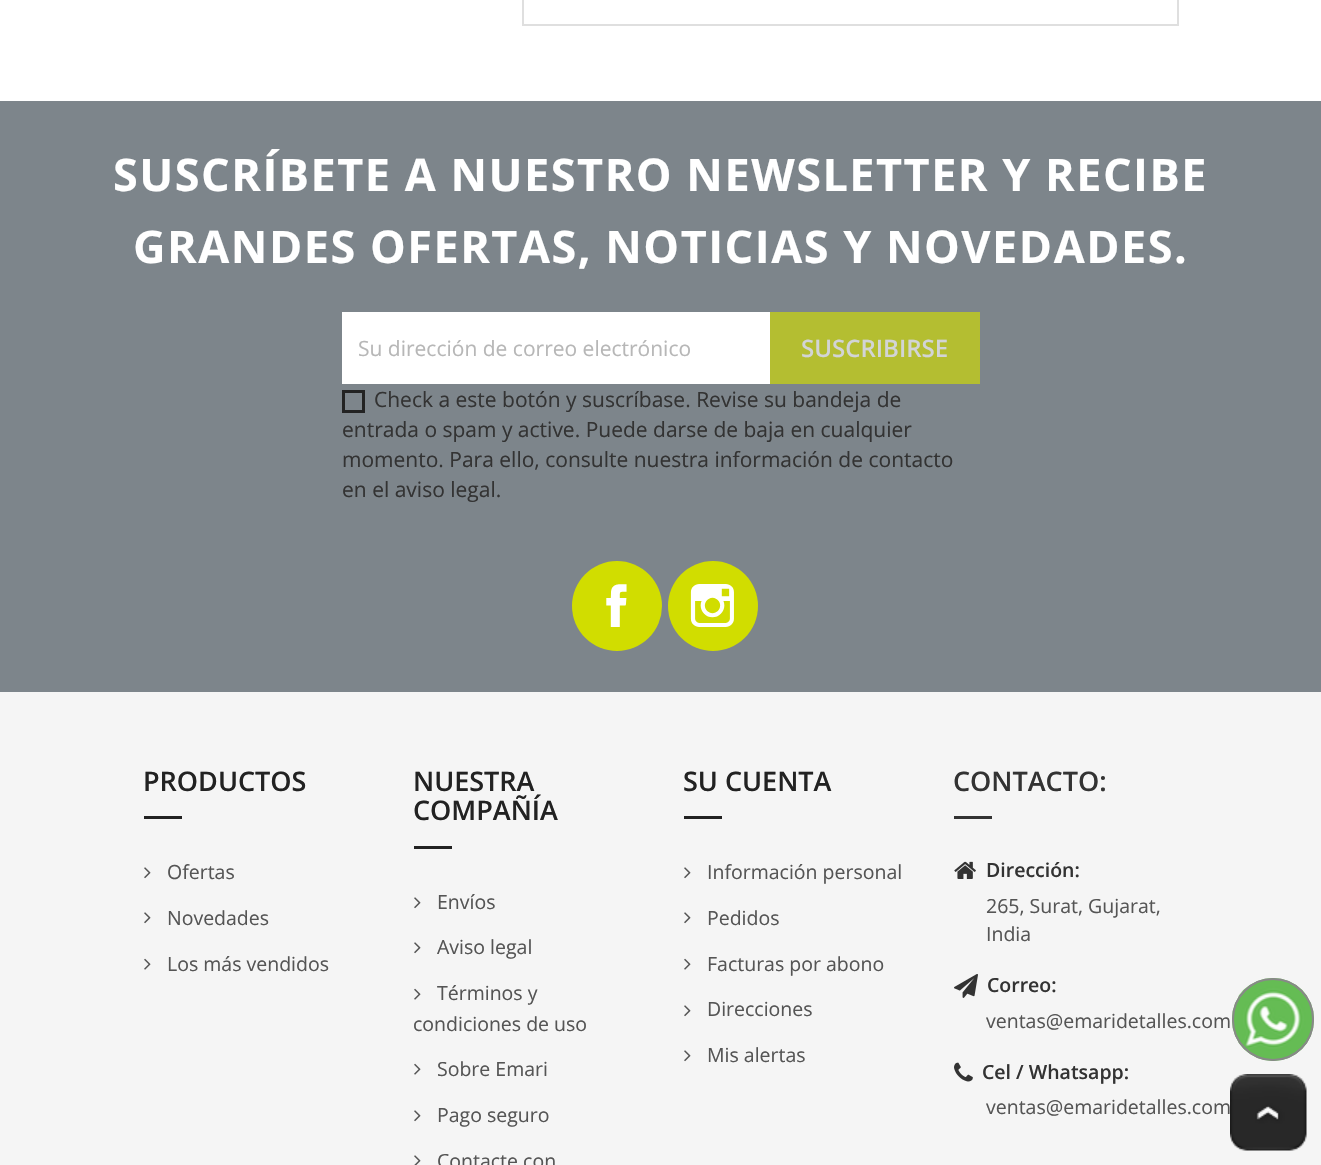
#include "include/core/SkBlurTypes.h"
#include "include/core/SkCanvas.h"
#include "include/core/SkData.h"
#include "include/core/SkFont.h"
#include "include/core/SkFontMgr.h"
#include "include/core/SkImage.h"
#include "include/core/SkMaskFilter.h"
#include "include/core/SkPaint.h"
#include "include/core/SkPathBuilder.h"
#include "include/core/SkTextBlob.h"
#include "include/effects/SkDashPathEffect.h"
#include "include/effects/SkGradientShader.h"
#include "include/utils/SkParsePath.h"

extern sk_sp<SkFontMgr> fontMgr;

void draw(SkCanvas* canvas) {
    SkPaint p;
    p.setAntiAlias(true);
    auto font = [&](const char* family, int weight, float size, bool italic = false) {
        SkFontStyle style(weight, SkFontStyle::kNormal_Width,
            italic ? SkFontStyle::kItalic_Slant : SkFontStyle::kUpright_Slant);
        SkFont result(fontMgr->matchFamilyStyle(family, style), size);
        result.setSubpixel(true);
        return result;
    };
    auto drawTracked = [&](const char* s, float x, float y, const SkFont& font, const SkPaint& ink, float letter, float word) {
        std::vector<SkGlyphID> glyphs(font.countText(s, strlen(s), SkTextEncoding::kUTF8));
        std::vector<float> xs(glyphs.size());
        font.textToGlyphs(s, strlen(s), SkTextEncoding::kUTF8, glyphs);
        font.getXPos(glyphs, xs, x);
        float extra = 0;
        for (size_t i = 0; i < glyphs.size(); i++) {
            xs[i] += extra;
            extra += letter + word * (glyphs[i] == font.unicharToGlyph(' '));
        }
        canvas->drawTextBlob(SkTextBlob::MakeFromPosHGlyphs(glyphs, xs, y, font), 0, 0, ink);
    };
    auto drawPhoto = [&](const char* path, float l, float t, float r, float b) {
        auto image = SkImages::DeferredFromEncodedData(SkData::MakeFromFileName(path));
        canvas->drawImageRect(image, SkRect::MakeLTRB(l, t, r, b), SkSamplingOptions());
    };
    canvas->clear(0xFFFFFFFF);
    p.setStyle(SkPaint::kStroke_Style);
    p.setStrokeWidth(2);
    p.setColor(0xFFDFDFDF);
    canvas->drawRect(SkRect::MakeLTRB(523, -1, 1178, 25), p);
    p.setStyle(SkPaint::kFill_Style);
    p.setColor(0xFF7D858B);
    canvas->drawRect(SkRect::MakeLTRB(0, 101, 1321, 692), p);
    auto font1 = font("Open Sans", 700, 45);
    p.setColor(0xFFFFFFFF);
    drawTracked("SUSCRÍBETE A NUESTRO NEWSLETTER Y RECIBE", 113, 191, font1, p, 1.5f, 0);
    drawTracked("GRANDES OFERTAS, NOTICIAS Y NOVEDADES.", 133, 263, font1, p, 1.5f, 0);
    canvas->drawRect(SkRect::MakeLTRB(342, 312, 770, 384), p);
    auto font2 = font("Open Sans", 400, 21);
    p.setColor(0xFFB7B7B7);
    canvas->drawString("Su dirección de correo electrónico", 358, 356, font2, p);
    p.setColor(0xFFB4BE31);
    canvas->drawRect(SkRect::MakeLTRB(770, 312, 980, 384), p);
    auto font3 = font("Open Sans", 600, 24);
    p.setColor(0xFFD2D4D6);
    canvas->drawString("SUSCRIBIRSE", 801, 357, font3, p);
    p.setStyle(SkPaint::kStroke_Style);
    p.setStrokeWidth(3);
    p.setColor(0xFF232323);
    canvas->drawRect(SkRect::MakeLTRB(343.5f, 391.5f, 363.5f, 411.5f), p);
    p.setStyle(SkPaint::kFill_Style);
    p.setColor(0xFF333333);
    {
        const struct { const char* s; float x, y; } items[] = {
            {"Check a este botón y suscríbase. Revise su bandeja de", 374, 407},
            {"entrada o spam y active. Puede darse de baja en cualquier", 342, 437},
            {"momento. Para ello, consulte nuestra información de contacto", 342, 467},
            {"en el aviso legal.", 342, 497},
        };
        for (auto [s, x, y] : items) {
            canvas->drawString(s, x, y, font2, p);
        }
    }
    p.setColor(0xFFD1DD00);
    canvas->drawCircle(617, 606, 45, p);
    drawPhoto("media/1.png", 606, 584, 627, 627);
    canvas->drawCircle(713, 606, 45, p);
    drawPhoto("media/2.png", 690, 584, 734, 627);
    p.setColor(0xFFF5F5F5);
    canvas->drawRect(SkRect::MakeLTRB(0, 692, 1321, 1165), p);
    auto font4 = font("Open Sans", 600, 27);
    p.setColor(0xFF222222);
    canvas->drawString("PRODUCTOS", 143, 791, font4, p);
    canvas->drawRect(SkRect::MakeLTRB(144, 816, 182, 819), p);
    drawPhoto("media/3.png", 144, 867, 151, 879);
    auto font5 = font("Open Sans", 400, 19.5f);
    p.setColor(0xFF555555);
    canvas->drawString("Ofertas", 167, 879, font5, p);
    drawPhoto("media/3.png", 144, 912, 151, 924);
    canvas->drawString("Novedades", 167, 925, font5, p);
    drawPhoto("media/4.png", 144, 958, 151, 970);
    canvas->drawString("Los más vendidos", 167, 971, font5, p);
    p.setColor(0xFF222222);
    canvas->drawString("NUESTRA", 413, 791, font4, p);
    canvas->drawString("COMPAÑÍA", 413, 820, font4, p);
    canvas->drawRect(SkRect::MakeLTRB(414, 846, 452, 849), p);
    drawPhoto("media/3.png", 414, 897, 421, 909);
    p.setColor(0xFF555555);
    canvas->drawString("Envíos", 437, 909, font5, p);
    drawPhoto("media/3.png", 414, 942, 421, 954);
    canvas->drawString("Aviso legal", 437, 954, font5, p);
    drawPhoto("media/4.png", 414, 988, 421, 1000);
    canvas->drawString("Términos y", 437, 1000, font5, p);
    canvas->drawString("condiciones de uso", 413, 1031, font5, p);
    drawPhoto("media/4.png", 414, 1063, 421, 1075);
    canvas->drawString("Sobre Emari", 437, 1076, font5, p);
    drawPhoto("media/3.png", 414, 1110, 421, 1122);
    canvas->drawString("Pago seguro", 437, 1122, font5, p);
    drawPhoto("media/5.png", 414, 1155, 421, 1165);
    canvas->drawString("Contacte con", 437, 1168, font5, p);
    p.setColor(0xFF222222);
    canvas->drawString("SU CUENTA", 683, 791, font4, p);
    canvas->drawRect(SkRect::MakeLTRB(684, 816, 722, 819), p);
    drawPhoto("media/3.png", 684, 867, 691, 879);
    p.setColor(0xFF555555);
    canvas->drawString("Información personal", 707, 879, font5, p);
    drawPhoto("media/3.png", 684, 912, 691, 924);
    canvas->drawString("Pedidos", 707, 925, font5, p);
    drawPhoto("media/4.png", 684, 958, 691, 970);
    canvas->drawString("Facturas por abono", 707, 971, font5, p);
    drawPhoto("media/3.png", 684, 1005, 691, 1017);
    canvas->drawString("Direcciones", 707, 1016, font5, p);
    drawPhoto("media/3.png", 684, 1050, 691, 1062);
    canvas->drawString("Mis alertas", 707, 1062, font5, p);
    p.setColor(0xFF333333);
    canvas->drawString("CONTACTO:", 953, 791, font4, p);
    canvas->drawRect(SkRect::MakeLTRB(954, 816, 992, 819), p);
    drawPhoto("media/6.png", 954, 861, 976, 879);
    auto font6 = font("Open Sans", 600, 19.5f);
    canvas->drawString("Dirección:", 986, 877, font6, p);
    p.setColor(0xFF555555);
    canvas->drawString("265, Surat, Gujarat,", 986, 913, font5, p);
    canvas->drawString("India", 986, 941, font5, p);
    drawPhoto("media/7.png", 954, 974, 978, 998);
    p.setColor(0xFF333333);
    canvas->drawString("Correo:", 987, 992, font6, p);
    p.setColor(0xFF555555);
    canvas->drawString("ventas@emaridetalles.com", 986, 1028, font5, p);
    drawPhoto("media/8.png", 954, 1062, 973, 1082);
    p.setColor(0xFF333333);
    canvas->drawString("Cel / Whatsapp:", 982, 1079, font6, p);
    p.setColor(0xFF555555);
    canvas->drawString("ventas@emaridetalles.com", 986, 1114, font5, p);
    p.setColor(0xFF65BC54);
    canvas->drawRoundRect(SkRect::MakeLTRB(1232, 978, 1314, 1061), 41, 41, p);
    drawPhoto("media/9.png", 1238, 985, 1307, 1053);
    p.setStyle(SkPaint::kStroke_Style);
    p.setStrokeWidth(2);
    p.setColor(0xFF888888);
    canvas->drawRoundRect(SkRect::MakeLTRB(1233, 979, 1313, 1060), 40, 40, p);
    drawPhoto("media/10.png", 1230, 1074, 1307, 1151);
}
